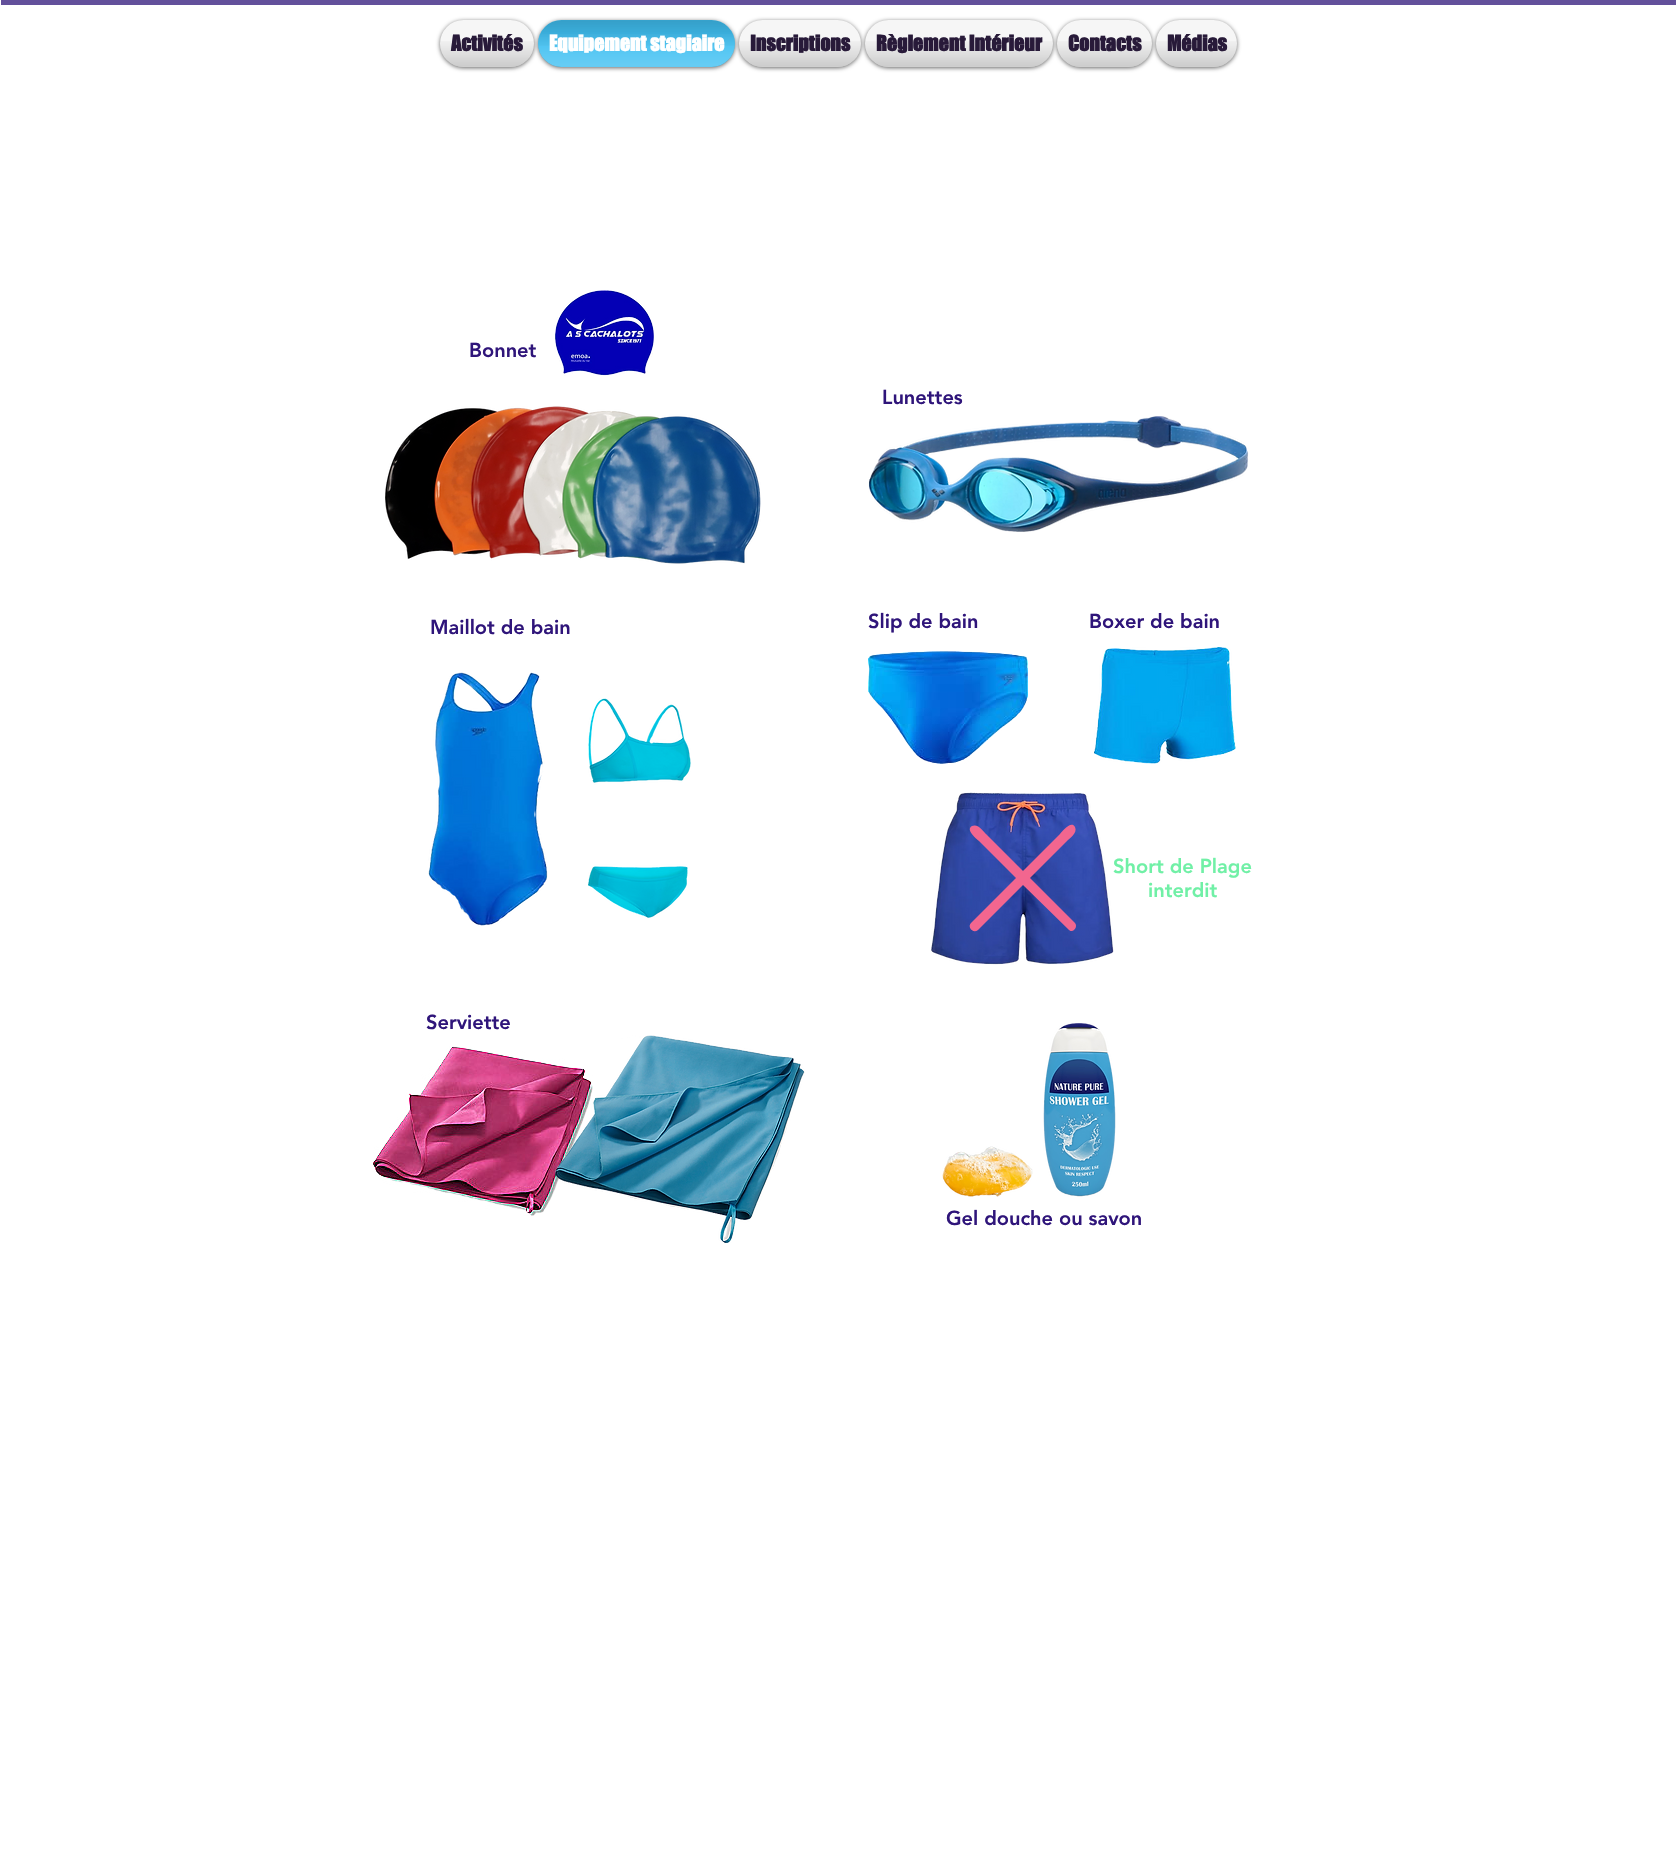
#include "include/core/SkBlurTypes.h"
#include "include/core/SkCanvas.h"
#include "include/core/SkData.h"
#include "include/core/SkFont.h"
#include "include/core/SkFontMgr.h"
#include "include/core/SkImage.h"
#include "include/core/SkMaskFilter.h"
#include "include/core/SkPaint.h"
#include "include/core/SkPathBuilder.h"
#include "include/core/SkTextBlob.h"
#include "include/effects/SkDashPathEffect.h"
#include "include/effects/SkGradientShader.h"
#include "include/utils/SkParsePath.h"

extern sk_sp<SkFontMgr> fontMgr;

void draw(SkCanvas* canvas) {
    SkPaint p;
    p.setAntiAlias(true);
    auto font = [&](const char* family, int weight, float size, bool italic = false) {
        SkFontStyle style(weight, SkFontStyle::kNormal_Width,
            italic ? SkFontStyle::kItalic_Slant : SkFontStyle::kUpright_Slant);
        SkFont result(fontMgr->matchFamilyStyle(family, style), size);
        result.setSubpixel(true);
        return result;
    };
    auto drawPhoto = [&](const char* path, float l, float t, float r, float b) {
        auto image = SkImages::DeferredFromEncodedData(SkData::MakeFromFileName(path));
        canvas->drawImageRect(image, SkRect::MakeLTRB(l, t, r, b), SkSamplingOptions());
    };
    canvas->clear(0xFFFFFFFF);
    p.setColor(0xFF63509B);
    canvas->drawRect(SkRect::MakeLTRB(1, 0, 1676, 5), p);
    p.setColor(0x99000000);
    p.setMaskFilter(SkMaskFilter::MakeBlur(kNormal_SkBlurStyle, 2));
    canvas->drawRoundRect(SkRect::MakeLTRB(440, 21, 534, 68), 23.5f, 23.5f, p);
    p.setMaskFilter(nullptr);
    p.setColor(0xFFF6F6F6);
    canvas->drawRoundRect(SkRect::MakeLTRB(440, 20, 534, 67), 23.5f, 23.5f, p);
    drawPhoto("media/1.png", 440, 41, 534, 67);
    auto font1 = font("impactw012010", 700, 20);
    p.setColor(0xFF281A39);
    canvas->drawString("Activités", 451, 51, font1, p);
    p.setColor(0x99000000);
    p.setMaskFilter(SkMaskFilter::MakeBlur(kNormal_SkBlurStyle, 2));
    canvas->drawRoundRect(SkRect::MakeLTRB(538, 21, 735, 68), 23.5f, 23.5f, p);
    p.setMaskFilter(nullptr);
    p.setColor(0xFF40C0F2);
    canvas->drawRoundRect(SkRect::MakeLTRB(538, 20, 735, 67), 23.5f, 23.5f, p);
    drawPhoto("media/2.png", 538, 20, 735, 46);
    drawPhoto("media/3.png", 538, 34, 735, 67);
    p.setColor(0xFFFFFFFF);
    canvas->drawString("Equipement stagiaire", 549, 51, font1, p);
    p.setColor(0x99000000);
    p.setMaskFilter(SkMaskFilter::MakeBlur(kNormal_SkBlurStyle, 2));
    canvas->drawRoundRect(SkRect::MakeLTRB(739, 21, 861, 68), 23.5f, 23.5f, p);
    p.setMaskFilter(nullptr);
    p.setColor(0xFFF6F6F6);
    canvas->drawRoundRect(SkRect::MakeLTRB(739, 20, 861, 67), 23.5f, 23.5f, p);
    drawPhoto("media/4.png", 739, 41, 861, 67);
    p.setColor(0xFF281A39);
    canvas->drawString("Inscriptions", 750, 51, font1, p);
    p.setColor(0x99000000);
    p.setMaskFilter(SkMaskFilter::MakeBlur(kNormal_SkBlurStyle, 2));
    canvas->drawRoundRect(SkRect::MakeLTRB(865, 21, 1053, 68), 23.5f, 23.5f, p);
    p.setMaskFilter(nullptr);
    p.setColor(0xFFF6F6F6);
    canvas->drawRoundRect(SkRect::MakeLTRB(865, 20, 1053, 67), 23.5f, 23.5f, p);
    drawPhoto("media/5.png", 865, 41, 1053, 67);
    p.setColor(0xFF281A39);
    canvas->drawString("Règlement Intérieur", 876, 51, font1, p);
    p.setColor(0x99000000);
    p.setMaskFilter(SkMaskFilter::MakeBlur(kNormal_SkBlurStyle, 2));
    canvas->drawRoundRect(SkRect::MakeLTRB(1057, 21, 1152, 68), 23.5f, 23.5f, p);
    p.setMaskFilter(nullptr);
    p.setColor(0xFFF6F6F6);
    canvas->drawRoundRect(SkRect::MakeLTRB(1057, 20, 1152, 67), 23.5f, 23.5f, p);
    drawPhoto("media/6.png", 1057, 41, 1152, 67);
    p.setColor(0xFF281A39);
    canvas->drawString("Contacts", 1068, 51, font1, p);
    p.setColor(0x99000000);
    p.setMaskFilter(SkMaskFilter::MakeBlur(kNormal_SkBlurStyle, 2));
    canvas->drawRoundRect(SkRect::MakeLTRB(1156, 21, 1237, 68), 23.5f, 23.5f, p);
    p.setMaskFilter(nullptr);
    p.setColor(0xFFF6F6F6);
    canvas->drawRoundRect(SkRect::MakeLTRB(1156, 20, 1237, 67), 23.5f, 23.5f, p);
    drawPhoto("media/7.png", 1156, 41, 1237, 67);
    p.setColor(0xFF281A39);
    canvas->drawString("Médias", 1167, 51, font1, p);
    auto font2 = font("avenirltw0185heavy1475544", 900, 20);
    p.setColor(0xFF2F157A);
    canvas->drawString("Bonnet", 469, 357, font2, p);
    drawPhoto("media/8.png", 554, 290, 654, 376);
    canvas->drawString("Lunettes", 882, 404, font2, p);
    drawPhoto("media/9.png", 385, 406, 761, 564);
    drawPhoto("media/10.png", 868, 416, 1249, 532);
    {
        const struct { const char* s; float x, y; } items[] = {
            {"Maillot de bain", 430, 634},
            {"Slip de bain", 868, 628},
            {"Boxer de bain", 1089, 628},
        };
        for (auto [s, x, y] : items) {
            canvas->drawString(s, x, y, font2, p);
        }
    }
    drawPhoto("media/11.png", 428, 672, 548, 926);
    drawPhoto("media/12.png", 588, 698, 691, 918);
    drawPhoto("media/13.png", 868, 651, 1028, 764);
    drawPhoto("media/14.png", 1094, 647, 1236, 764);
    drawPhoto("media/15.png", 931, 792, 1114, 965);
    p.setColor(0xFFF2668F);
    canvas->drawPath(SkPathBuilder().moveTo(1075, 923).cubicTo(1077, 925, 1076, 930, 1072, 931).cubicTo(1071, 931, 1070, 931, 1069, 930).lineTo(1023, 885).lineTo(978, 930).cubicTo(973, 934, 967, 927, 971, 923).lineTo(1016, 878).lineTo(979, 841).cubicTo(977, 839, 965, 830, 972, 826).cubicTo(978, 823, 984, 832, 986, 834).lineTo(1023, 871).lineTo(1060, 834).cubicTo(1062, 832, 1071, 820, 1075, 827).cubicTo(1078, 833, 1069, 839, 1067, 841).lineTo(1030, 878).close().detach(), p);
    p.setColor(0xFF70F0A6);
    canvas->drawString("Short de Plage", 1113, 873, font2, p);
    canvas->drawString("interdit", 1148, 897, font2, p);
    p.setColor(0xFF2F157A);
    canvas->drawString("Serviette", 426, 1029, font2, p);
    drawPhoto("media/18.png", 373, 1046, 593, 1216);
    drawPhoto("media/16.png", 555, 1035, 805, 1243);
    drawPhoto("media/17.png", 1043, 1023, 1116, 1197);
    drawPhoto("media/19.png", 942, 1146, 1033, 1197);
    canvas->drawString("Gel douche ou savon", 946, 1225, font2, p);
}
